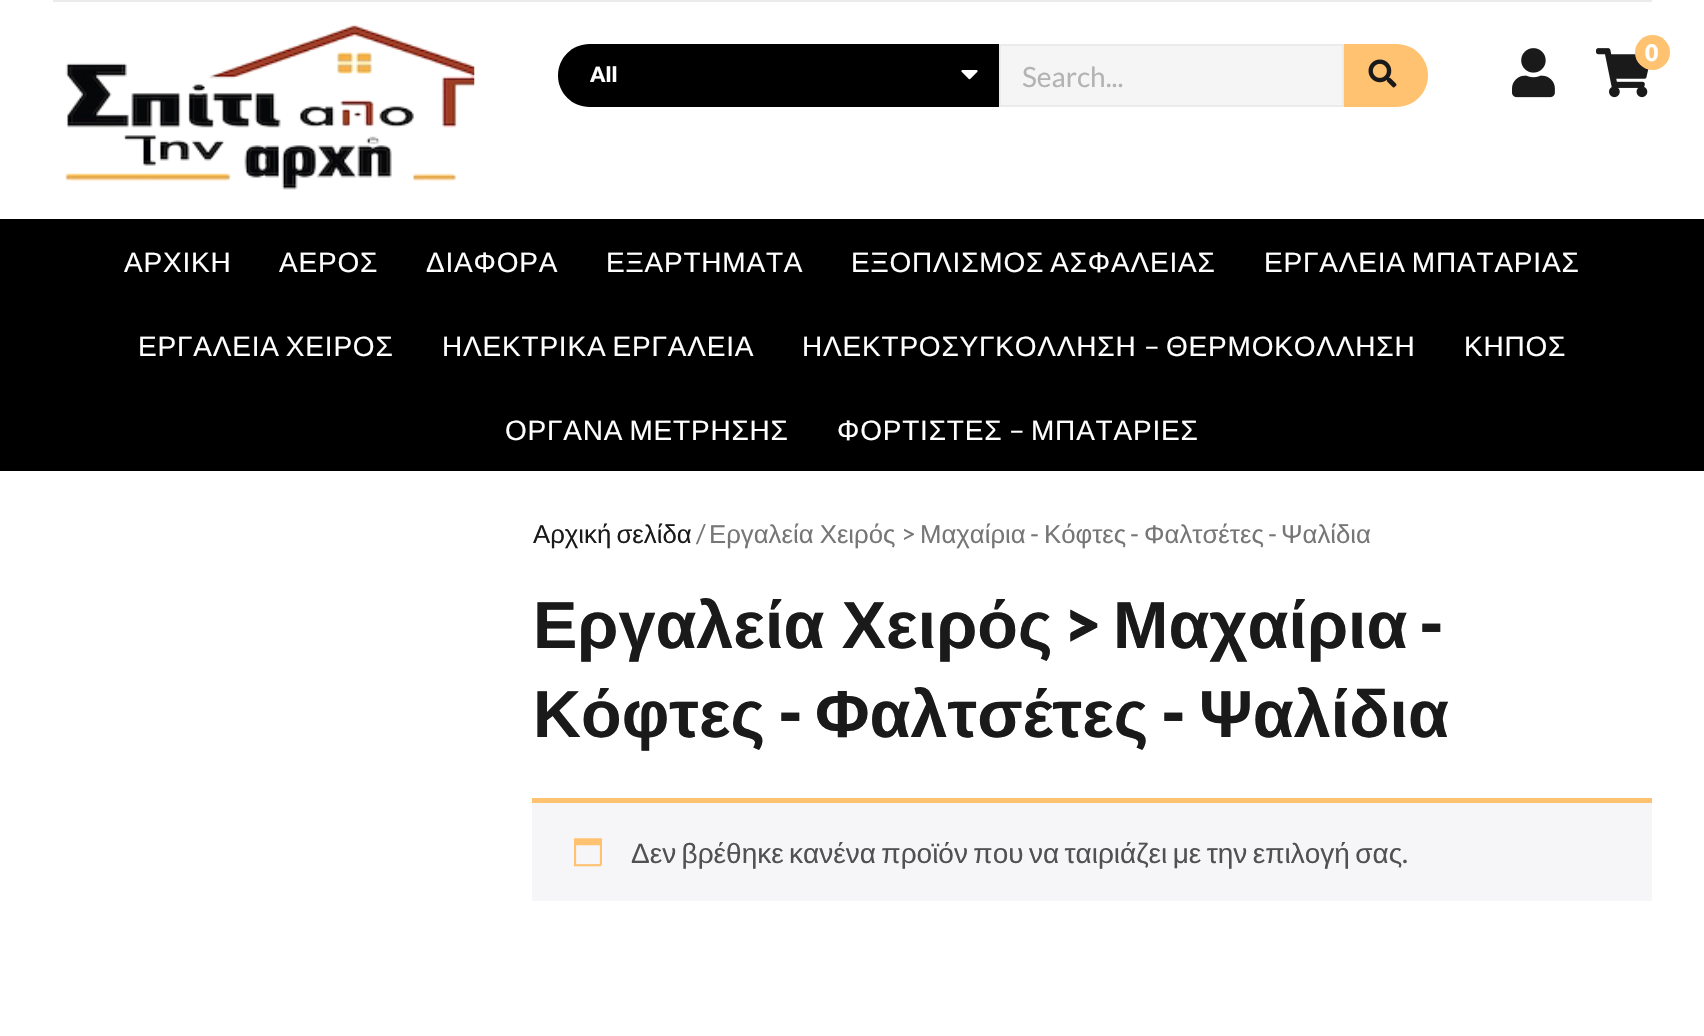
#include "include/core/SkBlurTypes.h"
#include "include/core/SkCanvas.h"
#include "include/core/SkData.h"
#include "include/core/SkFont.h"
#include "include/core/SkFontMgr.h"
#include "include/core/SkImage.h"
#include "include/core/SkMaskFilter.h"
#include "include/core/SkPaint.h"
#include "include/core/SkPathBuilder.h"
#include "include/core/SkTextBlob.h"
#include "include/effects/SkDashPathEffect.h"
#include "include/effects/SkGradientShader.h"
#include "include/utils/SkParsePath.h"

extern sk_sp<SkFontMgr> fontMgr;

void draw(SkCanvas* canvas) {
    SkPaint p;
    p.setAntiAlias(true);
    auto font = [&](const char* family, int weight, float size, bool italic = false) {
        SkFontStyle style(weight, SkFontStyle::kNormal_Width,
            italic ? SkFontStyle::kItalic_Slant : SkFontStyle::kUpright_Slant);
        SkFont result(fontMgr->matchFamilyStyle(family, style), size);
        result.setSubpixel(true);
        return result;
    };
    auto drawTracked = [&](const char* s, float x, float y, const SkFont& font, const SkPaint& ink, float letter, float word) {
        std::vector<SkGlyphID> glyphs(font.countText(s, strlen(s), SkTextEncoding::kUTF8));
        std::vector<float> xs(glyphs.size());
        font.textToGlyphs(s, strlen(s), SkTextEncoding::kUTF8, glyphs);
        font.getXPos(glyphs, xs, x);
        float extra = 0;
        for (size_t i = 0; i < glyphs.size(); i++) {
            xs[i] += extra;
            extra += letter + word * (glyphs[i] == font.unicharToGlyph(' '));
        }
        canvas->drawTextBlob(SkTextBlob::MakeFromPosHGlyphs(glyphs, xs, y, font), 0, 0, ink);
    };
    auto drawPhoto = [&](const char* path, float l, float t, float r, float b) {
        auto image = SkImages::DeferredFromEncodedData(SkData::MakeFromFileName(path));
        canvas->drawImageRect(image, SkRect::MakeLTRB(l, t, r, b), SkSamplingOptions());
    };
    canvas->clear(0xFFFFFFFF);
    p.setColor(0xFFEBEBEB);
    canvas->drawRect(SkRect::MakeLTRB(53, 0, 1652, 2), p);
    drawPhoto("media/1.png", 65, 24, 475, 190);
    p.setColor(0xFF000000);
    canvas->drawPath(SkPathBuilder().moveTo(589.5f, 44).lineTo(999, 44).lineTo(999, 107).lineTo(589.5f, 107).cubicTo(572, 107, 558, 93, 558, 75.5f).cubicTo(558, 58, 572, 44, 589.5f, 44).close().detach(), p);
    auto font1 = font("Lato", 900, 21);
    p.setColor(0xFFFFFFFF);
    canvas->drawString("All", 590, 82, font1, p);
    drawPhoto("media/2.png", 961, 70, 978, 80);
    p.setColor(0xFFF5F5F5);
    canvas->drawRect(SkRect::MakeLTRB(1000, 45, 1343, 106), p);
    p.setStyle(SkPaint::kStroke_Style);
    p.setStrokeWidth(2);
    p.setColor(0xFFEBEBEB);
    canvas->drawRect(SkRect::MakeLTRB(1000, 45, 1343, 106), p);
    auto font2 = font("Lato", 400, 28);
    p.setStyle(SkPaint::kFill_Style);
    p.setColor(0xFFB3B3B3);
    canvas->drawString("Search...", 1022, 87, font2, p);
    p.setColor(0xFFFFC270);
    canvas->drawPath(SkPathBuilder().moveTo(1344, 44).lineTo(1396.5f, 44).cubicTo(1414, 44, 1428, 58, 1428, 75.5f).cubicTo(1428, 93, 1414, 107, 1396.5f, 107).lineTo(1344, 107).close().detach(), p);
    drawPhoto("media/3.png", 1368, 59, 1397, 88);
    drawPhoto("media/4.png", 1512, 48, 1555, 98);
    drawPhoto("media/5.png", 1596, 48, 1649, 98);
    canvas->drawCircle(1652.5f, 52.5f, 17.5f, p);
    auto font3 = font("Lato", 900, 23);
    p.setColor(0xFFFFFFFF);
    canvas->drawString("0", 1645, 61, font3, p);
    p.setColor(0xFF000000);
    canvas->drawRect(SkRect::MakeLTRB(0, 219, 1704, 471), p);
    auto font4 = font("Liberation Sans", 400, 28);
    p.setColor(0xFFFFFFFF);
    {
        const struct { const char* s; float x, y; } items[] = {
            {"ΑΡΧΙΚΗ", 124, 272},
            {"ΑΕΡΟΣ", 279, 272},
            {"ΔΙΑΦΟΡΑ", 426, 272},
            {"ΕΞΑΡΤΗΜΑΤΑ", 606, 272},
        };
        for (auto [s, x, y] : items) {
            drawTracked(s, x, y, font4, p, 0.8f, 0);
        }
    }
    {
        const struct { const char* s; float x, y; } items[] = {
            {"ΕΞΟΠΛΙΣΜΟΣ ΑΣΦΑΛΕΙΑΣ", 851, 272},
            {"ΕΡΓΑΛΕΙΑ ΜΠΑΤΑΡΙΑΣ", 1264, 272},
            {"ΕΡΓΑΛΕΙΑ ΧΕΙΡΟΣ", 138, 356},
            {"ΗΛΕΚΤΡΙΚΑ ΕΡΓΑΛΕΙΑ", 442, 356},
        };
        for (auto [s, x, y] : items) {
            drawTracked(s, x, y, font4, p, 0.8f, -2.4f);
        }
    }
    drawTracked("ΗΛΕΚΤΡΟΣΥΓΚΟΛΛΗΣΗ", 802, 356, font4, p, 0.8f, 0);
    drawTracked("–", 1144, 356, font2, p, 0.8f, 0);
    drawTracked("ΘΕΡΜΟΚΟΛΛΗΣΗ", 1166, 356, font4, p, 0.8f, 0);
    drawTracked("ΚΗΠΟΣ", 1464, 356, font4, p, 0.8f, 0);
    drawTracked("ΟΡΓΑΝΑ ΜΕΤΡΗΣΗΣ", 505, 440, font4, p, 0.8f, -2.4f);
    drawTracked("ΦΟΡΤΙΣΤΕΣ", 837, 440, font4, p, 0.8f, 0);
    drawTracked("–", 1009, 440, font2, p, 0.8f, 0);
    drawTracked("ΜΠΑΤΑΡΙΕΣ", 1031, 440, font4, p, 0.8f, 0);
    auto font5 = font("Liberation Sans", 400, 25.75f);
    p.setColor(0xFF1A1A1A);
    drawTracked("Αρχική σελίδα", 533, 543, font5, p, 0, -2);
    auto font6 = font("Lato", 400, 25.75f);
    p.setColor(0xFF767676);
    canvas->drawString("/", 696, 543, font6, p);
    drawTracked("Εργαλεία Χειρός", 709, 543, font5, p, 0, -1);
    canvas->drawString(">", 901, 543, font6, p);
    canvas->drawString("Μαχαίρια", 920, 543, font5, p);
    canvas->drawString("-", 1030, 543, font6, p);
    canvas->drawString("Κόφτες", 1044, 543, font5, p);
    canvas->drawString("-", 1130, 543, font6, p);
    canvas->drawString("Φαλτσέτες", 1144, 543, font5, p);
    canvas->drawString("-", 1268, 543, font6, p);
    canvas->drawString("Ψαλίδια", 1281, 543, font5, p);
    auto font7 = font("Liberation Sans", 700, 66.5f);
    p.setColor(0xFF1A1A1A);
    drawTracked("Εργαλεία Χειρός", 533, 648, font7, p, 0, -1);
    auto font8 = font("Lato", 900, 66.5f);
    canvas->drawString(">", 1063, 648, font8, p);
    canvas->drawString("Μαχαίρια", 1113, 648, font7, p);
    canvas->drawString("-", 1419, 648, font8, p);
    canvas->drawString("Κόφτες", 533, 737, font7, p);
    canvas->drawString("-", 778, 737, font8, p);
    canvas->drawString("Φαλτσέτες", 815, 737, font7, p);
    canvas->drawString("-", 1161, 737, font8, p);
    canvas->drawString("Ψαλίδια", 1199, 737, font7, p);
    p.setColor(0xFFF6F5F8);
    canvas->drawRect(SkRect::MakeLTRB(532, 803, 1652, 901), p);
    p.setColor(0xFFFFC270);
    canvas->drawRect(SkRect::MakeLTRB(532, 798, 1652, 803), p);
    drawPhoto("media/6.png", 574, 838, 602, 867);
    p.setColor(0xFF515151);
    drawTracked("Δεν βρέθηκε κανένα προϊόν που να ταιριάζει με την επιλογή σας", 631, 863, font4, p, 0, -2.4f);
    canvas->drawString(".", 1402, 863, font2, p);
}
